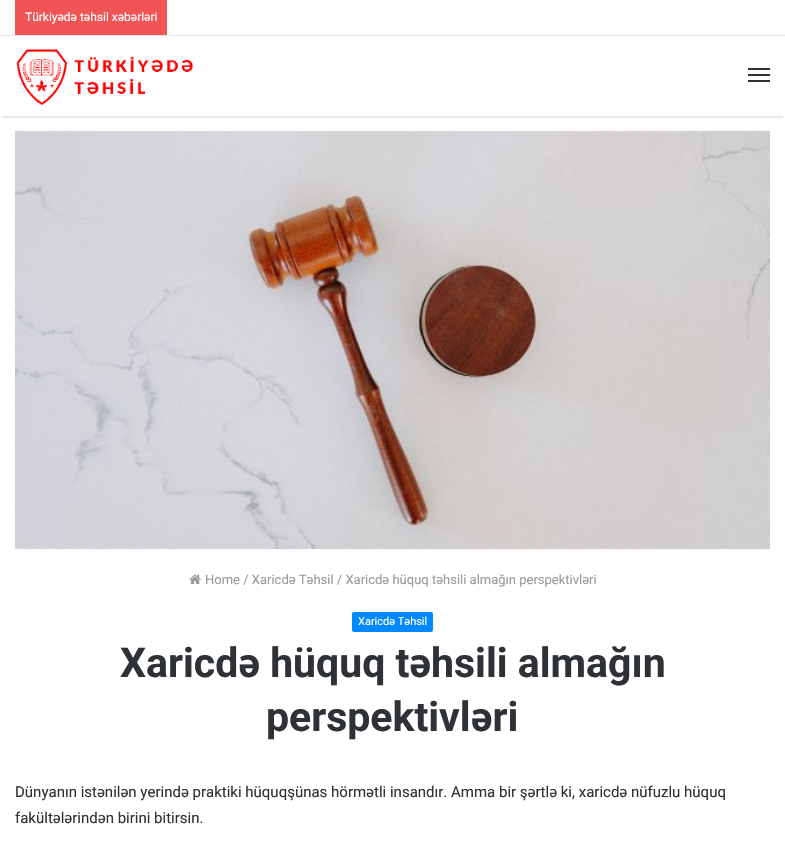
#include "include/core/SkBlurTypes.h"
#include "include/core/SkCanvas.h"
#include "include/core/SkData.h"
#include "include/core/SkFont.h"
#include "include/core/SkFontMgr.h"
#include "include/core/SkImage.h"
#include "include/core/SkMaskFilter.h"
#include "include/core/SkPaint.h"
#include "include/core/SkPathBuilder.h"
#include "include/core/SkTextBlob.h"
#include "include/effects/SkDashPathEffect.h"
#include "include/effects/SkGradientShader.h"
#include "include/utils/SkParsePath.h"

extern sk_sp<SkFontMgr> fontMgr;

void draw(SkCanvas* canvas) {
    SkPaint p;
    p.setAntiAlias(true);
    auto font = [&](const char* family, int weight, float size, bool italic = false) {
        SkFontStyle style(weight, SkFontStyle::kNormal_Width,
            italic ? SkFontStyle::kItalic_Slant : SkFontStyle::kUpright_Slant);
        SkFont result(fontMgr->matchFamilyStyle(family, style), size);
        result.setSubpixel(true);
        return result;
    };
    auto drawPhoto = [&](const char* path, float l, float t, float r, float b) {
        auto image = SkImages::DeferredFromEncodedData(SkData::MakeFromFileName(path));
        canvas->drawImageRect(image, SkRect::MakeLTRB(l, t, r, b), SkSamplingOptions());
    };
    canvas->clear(0xFFFFFFFF);
    p.setColor(0xFFE6E6E6);
    canvas->drawRect(SkRect::MakeLTRB(0, 35, 785, 36), p);
    p.setColor(0xFFF05555);
    canvas->drawRect(SkRect::MakeLTRB(15, 0, 167, 35), p);
    auto font1 = font("Roboto", 400, 12);
    p.setColor(0xFFFFFFFF);
    canvas->drawString("Türkiyədə təhsil xəbərləri", 25, 21, font1, p);
    canvas->save();
    canvas->clipRect(SkRect::MakeLTRB(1, 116, 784, 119));
    p.setColor(0x1A000000);
    p.setMaskFilter(SkMaskFilter::MakeBlur(kNormal_SkBlurStyle, 1));
    canvas->drawRect(SkRect::MakeLTRB(2, 42, 783, 118), p);
    p.setMaskFilter(nullptr);
    canvas->restore();
    drawPhoto("media/1.png", 16, 49, 193, 106);
    {
        const struct { float l, t, r, b; SkColor color; } items[] = {
            {748, 74, 770, 76, 0xFF2C2F34},
            {748, 68, 770, 70, 0xFF2C2F34},
            {748, 80, 770, 82, 0xFF2C2F34},
        };
        for (auto [l, t, r, b, color] : items) {
            p.setColor(color);
            canvas->drawRect(SkRect::MakeLTRB(l, t, r, b), p);
        }
    }
    drawPhoto("media/2.png", 15, 131, 770, 549);
    drawPhoto("media/3.png", 189, 574, 201, 584);
    auto font2 = font("Roboto", 400, 13);
    p.setColor(0xFF9A9A9A);
    canvas->drawString("Home / Xaricdə Təhsil / Xaricdə hüquq təhsili almağın perspektivləri", 205, 584, font2, p);
    p.setColor(0xFF0389FF);
    canvas->drawRoundRect(SkRect::MakeLTRB(352, 612, 433, 632), 2, 2, p);
    auto font3 = font("Roboto", 400, 11);
    p.setColor(0xFFFFFFFF);
    canvas->drawString("Xaricdə Təhsil", 358, 625, font3, p);
    auto font4 = font("Roboto", 700, 41);
    p.setColor(0xFF2E3136);
    canvas->drawString("Xaricdə hüquq təhsili almağın", 120, 677, font4, p);
    canvas->drawString("perspektivləri", 266, 731, font4, p);
    auto font5 = font("Roboto", 400, 15);
    canvas->drawString("Dünyanın istənilən yerində praktiki hüquqşünas hörmətli insandır. Amma bir şərtlə ki, xaricdə nüfuzlu hüquq", 15, 797, font5, p);
    canvas->drawString("fakültələrindən birini bitirsin.", 15, 823, font5, p);
}
